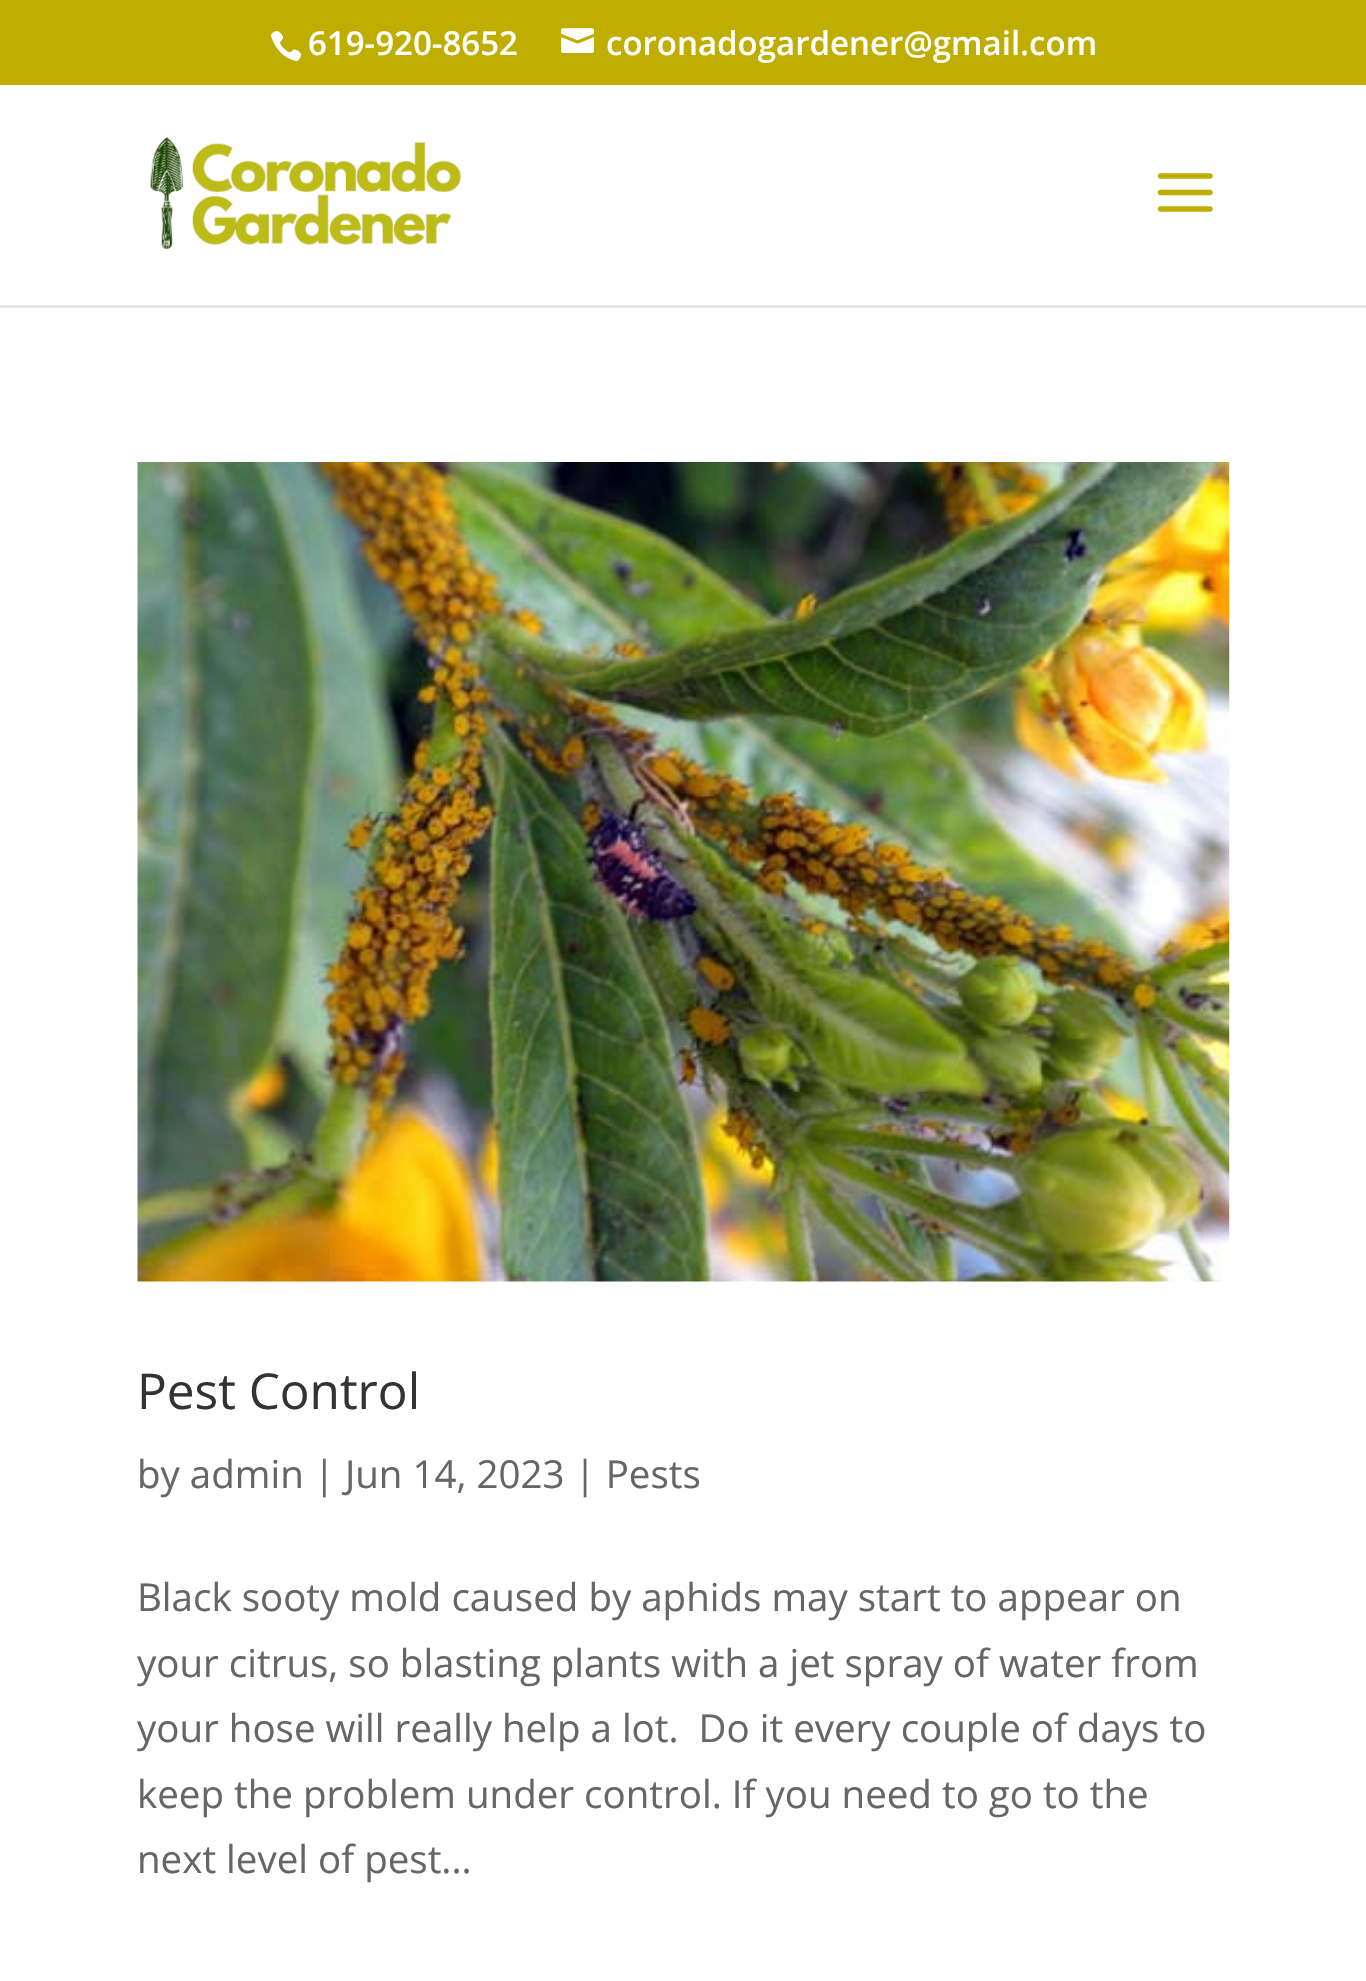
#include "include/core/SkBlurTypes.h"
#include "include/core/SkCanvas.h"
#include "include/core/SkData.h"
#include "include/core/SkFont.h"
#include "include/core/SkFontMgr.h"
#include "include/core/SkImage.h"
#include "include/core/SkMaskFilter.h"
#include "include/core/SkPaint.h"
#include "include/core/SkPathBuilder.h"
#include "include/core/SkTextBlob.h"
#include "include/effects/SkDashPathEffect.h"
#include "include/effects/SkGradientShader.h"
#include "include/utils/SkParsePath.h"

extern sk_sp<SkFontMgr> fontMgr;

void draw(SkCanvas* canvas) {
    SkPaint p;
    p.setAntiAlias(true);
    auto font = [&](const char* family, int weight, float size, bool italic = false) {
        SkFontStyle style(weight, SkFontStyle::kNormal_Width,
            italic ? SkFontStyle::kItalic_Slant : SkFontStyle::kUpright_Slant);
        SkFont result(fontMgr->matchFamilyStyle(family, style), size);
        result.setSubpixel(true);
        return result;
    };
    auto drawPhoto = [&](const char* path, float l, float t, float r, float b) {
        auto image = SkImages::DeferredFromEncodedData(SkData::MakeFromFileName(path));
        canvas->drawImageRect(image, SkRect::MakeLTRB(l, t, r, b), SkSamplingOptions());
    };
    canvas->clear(0xFFFFFFFF);
    p.setColor(0xFFBFAD00);
    canvas->drawRect(SkRect::MakeLTRB(0, 0, 1366, 85), p);
    drawPhoto("media/1.png", 270, 30, 302, 62);
    auto font1 = font("Open Sans", 600, 33);
    p.setColor(0xFFFFFFFF);
    canvas->drawString("619-920-8652", 308, 55, font1, p);
    drawPhoto("media/2.png", 561, 28, 594, 53);
    canvas->drawString("coronadogardener@gmail.com", 606, 55, font1, p);
    p.setColor(0xFFE6E6E6);
    canvas->drawPath(SkPathBuilder().moveTo(0, 305).lineTo(0, 308).lineTo(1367, 308).lineTo(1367, 88).lineTo(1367, 305).close().detach(), p);
    drawPhoto("media/3.png", 149, 137, 461, 250);
    drawPhoto("media/4.png", 1157, 173, 1213, 212);
    drawPhoto("media/5.png", 137, 462, 1230, 1282);
    auto font2 = font("Open Sans", 400, 49.5f);
    p.setColor(0xFF333333);
    canvas->drawString("Pest Control", 137, 1409, font2, p);
    auto font3 = font("Open Sans", 400, 38.5f);
    p.setColor(0xFF666666);
    {
        const struct { const char* s; float x, y; } items[] = {
            {"by admin | Jun 14, 2023 | Pests", 137, 1488},
            {"Black sooty mold caused by aphids may start to appear on", 137, 1611},
            {"your citrus, so blasting plants with a jet spray of water from", 137, 1677},
            {"your hose will really help a lot.  Do it every couple of days to", 137, 1742},
            {"keep the problem under control. If you need to go to the", 137, 1808},
            {"next level of pest...", 137, 1873},
        };
        for (auto [s, x, y] : items) {
            canvas->drawString(s, x, y, font3, p);
        }
    }
}
